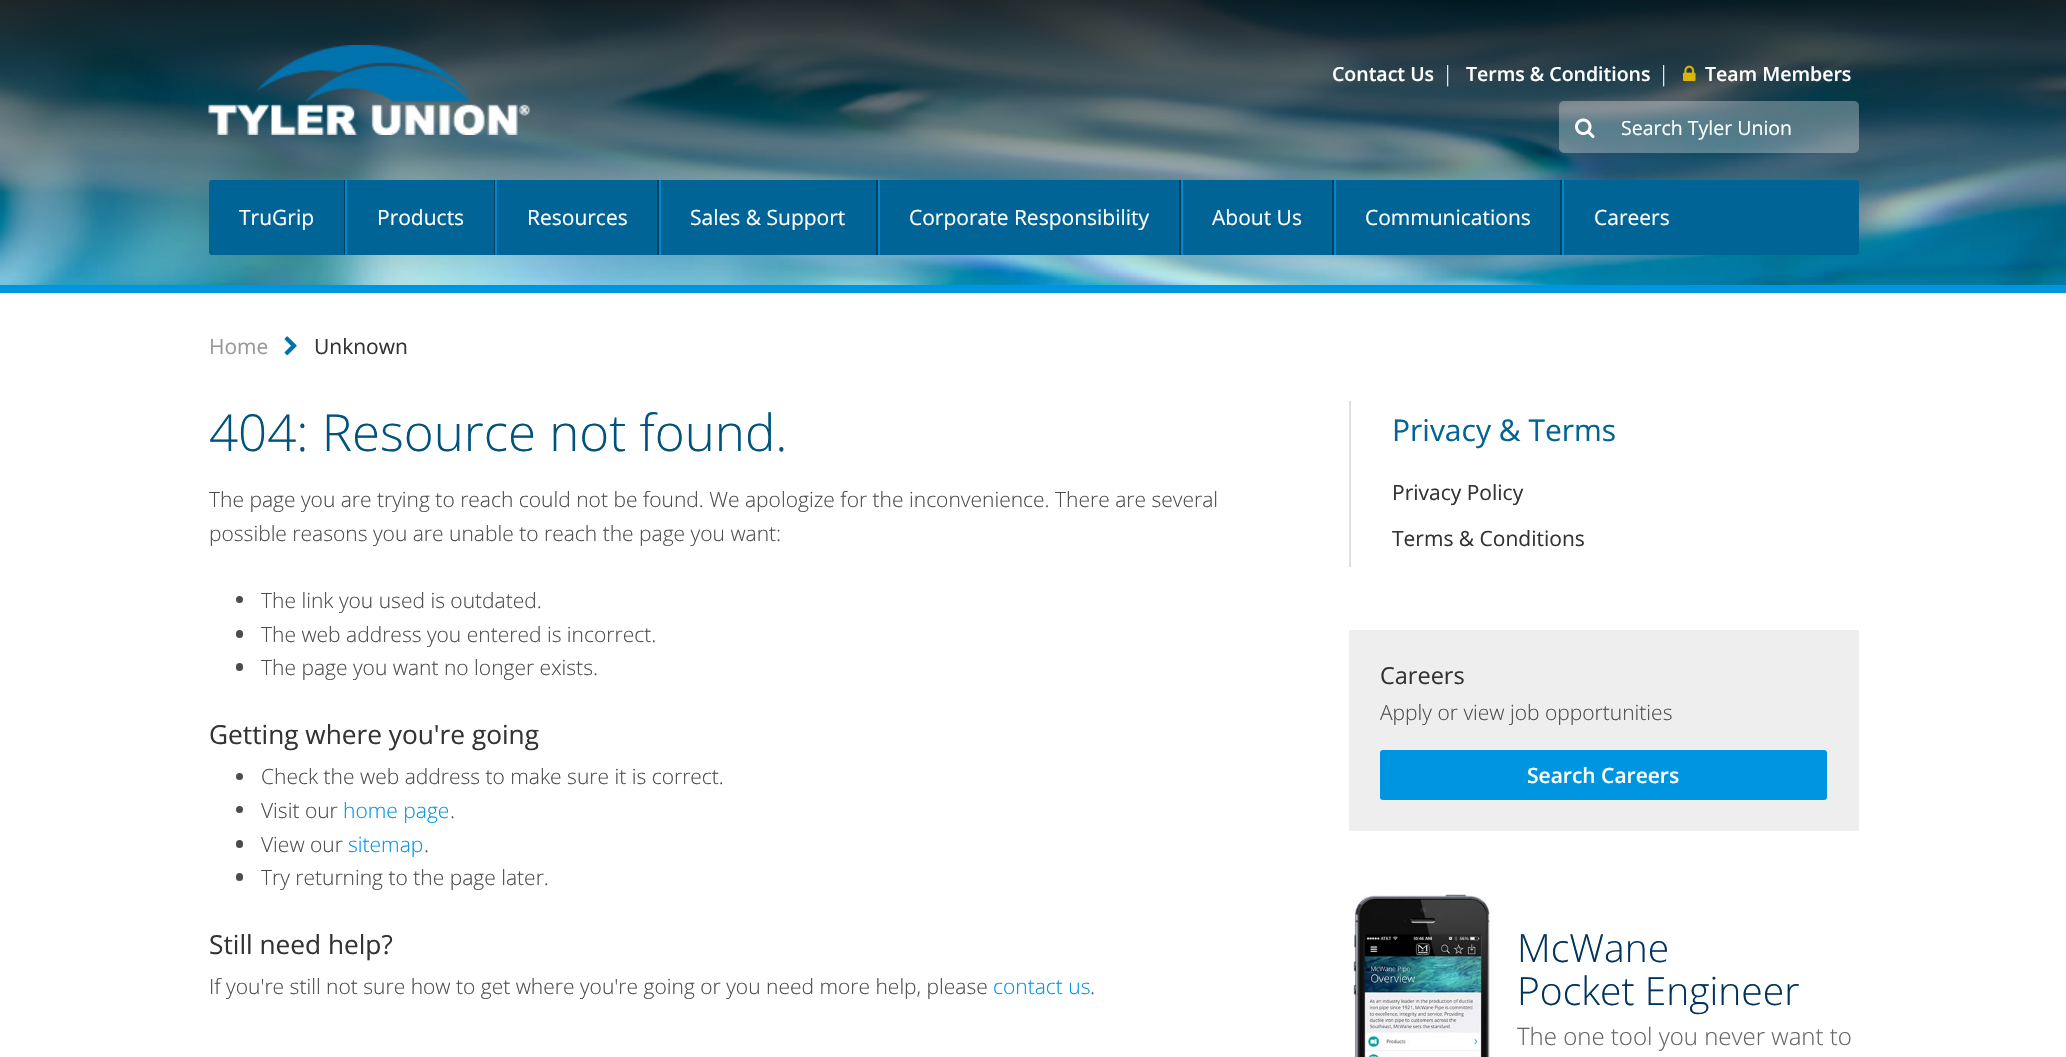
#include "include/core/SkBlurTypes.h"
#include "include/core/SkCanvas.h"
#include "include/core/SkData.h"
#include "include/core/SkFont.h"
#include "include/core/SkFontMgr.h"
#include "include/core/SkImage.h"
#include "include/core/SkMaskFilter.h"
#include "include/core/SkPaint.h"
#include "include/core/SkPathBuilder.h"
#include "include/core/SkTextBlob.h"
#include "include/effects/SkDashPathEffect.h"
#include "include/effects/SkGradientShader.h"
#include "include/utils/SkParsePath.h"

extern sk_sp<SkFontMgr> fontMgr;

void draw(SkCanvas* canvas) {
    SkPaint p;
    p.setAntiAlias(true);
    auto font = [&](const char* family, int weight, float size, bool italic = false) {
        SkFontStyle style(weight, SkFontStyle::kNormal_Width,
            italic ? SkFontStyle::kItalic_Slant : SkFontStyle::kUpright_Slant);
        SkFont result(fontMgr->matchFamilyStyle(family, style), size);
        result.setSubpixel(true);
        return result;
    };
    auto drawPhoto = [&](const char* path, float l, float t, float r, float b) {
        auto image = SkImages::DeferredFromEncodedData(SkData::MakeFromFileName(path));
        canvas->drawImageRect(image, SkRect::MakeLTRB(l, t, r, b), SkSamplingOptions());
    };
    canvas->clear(0xFFFFFFFF);
    p.setColor(0xFF0095E1);
    canvas->drawRect(SkRect::MakeLTRB(0, 285, 2066, 293), p);
    drawPhoto("media/1.png", 0, 0, 2066, 285);
    drawPhoto("media/2.png", 208, 45, 530, 135);
    auto font1 = font("Open Sans", 600, 19.5f);
    p.setColor(0xFFFFFFFF);
    canvas->drawString("Contact Us", 1332, 81, font1, p);
    auto font2 = font("Open Sans", 300, 21);
    canvas->drawString("|", 1442, 81, font2, p);
    canvas->drawString("Terms & Conditions", 1466, 81, font1, p);
    canvas->drawString("|", 1658, 81, font2, p);
    drawPhoto("media/3.png", 1683, 65, 1696, 81);
    canvas->drawString("Team Members", 1705, 81, font1, p);
    p.setColor(0x4DFFFFFF);
    canvas->drawRoundRect(SkRect::MakeLTRB(1559, 101, 1859, 153), 5, 5, p);
    drawPhoto("media/4.png", 1575, 118, 1595, 138);
    auto font3 = font("Open Sans", 400, 19.5f);
    p.setColor(0xFFFFFFFF);
    canvas->drawString("Search Tyler Union", 1621, 135, font3, p);
    p.setColor(0xFF006496);
    canvas->drawRoundRect(SkRect::MakeLTRB(209, 180, 1859, 255), 3, 3, p);
    p.setColor(0xFF004263);
    canvas->drawRect(SkRect::MakeLTRB(344, 180, 345, 255), p);
    auto font4 = font("Open Sans", 400, 21);
    p.setColor(0xFFFFFFFF);
    canvas->drawString("TruGrip", 239, 225, font4, p);
    p.setColor(0xFF004263);
    canvas->drawRect(SkRect::MakeLTRB(494, 180, 495, 255), p);
    p.setColor(0xFF0086C9);
    canvas->drawRect(SkRect::MakeLTRB(345, 180, 347, 255), p);
    p.setColor(0xFFFFFFFF);
    canvas->drawString("Products", 377, 225, font4, p);
    p.setColor(0xFF004263);
    canvas->drawRect(SkRect::MakeLTRB(657, 180, 659, 255), p);
    p.setColor(0xFF0086C9);
    canvas->drawRect(SkRect::MakeLTRB(495, 180, 497, 255), p);
    p.setColor(0xFFFFFFFF);
    canvas->drawString("Resources", 527, 225, font4, p);
    p.setColor(0xFF004263);
    canvas->drawRect(SkRect::MakeLTRB(876, 180, 878, 255), p);
    p.setColor(0xFF0086C9);
    canvas->drawRect(SkRect::MakeLTRB(659, 180, 661, 255), p);
    p.setColor(0xFFFFFFFF);
    canvas->drawString("Sales & Support", 690, 225, font4, p);
    p.setColor(0xFF004263);
    canvas->drawRect(SkRect::MakeLTRB(1179, 180, 1181, 255), p);
    p.setColor(0xFF0086C9);
    canvas->drawRect(SkRect::MakeLTRB(878, 180, 880, 255), p);
    p.setColor(0xFFFFFFFF);
    canvas->drawString("Corporate Responsibility", 909, 225, font4, p);
    p.setColor(0xFF004263);
    canvas->drawRect(SkRect::MakeLTRB(1332, 180, 1334, 255), p);
    p.setColor(0xFF0086C9);
    canvas->drawRect(SkRect::MakeLTRB(1181, 180, 1183, 255), p);
    p.setColor(0xFFFFFFFF);
    canvas->drawString("About Us", 1212, 225, font4, p);
    p.setColor(0xFF004263);
    canvas->drawRect(SkRect::MakeLTRB(1560, 180, 1562, 255), p);
    p.setColor(0xFF0086C9);
    canvas->drawRect(SkRect::MakeLTRB(1334, 180, 1336, 255), p);
    p.setColor(0xFFFFFFFF);
    canvas->drawString("Communications", 1365, 225, font4, p);
    p.setColor(0xFF0086C9);
    canvas->drawRect(SkRect::MakeLTRB(1562, 180, 1564, 255), p);
    p.setColor(0xFFFFFFFF);
    canvas->drawString("Careers", 1594, 225, font4, p);
    p.setColor(0xFF999999);
    canvas->drawString("Home", 209, 354, font4, p);
    drawPhoto("media/5.png", 284, 336, 297, 356);
    p.setColor(0xFF333333);
    canvas->drawString("Unknown", 314, 354, font4, p);
    auto font5 = font("Open Sans", 300, 51);
    p.setColor(0xFF00537D);
    canvas->drawString("404: Resource not found.", 209, 451, font5, p);
    p.setColor(0xFF4C4C4C);
    canvas->drawString("The page you are trying to reach could not be found. We apologize for the inconvenience. There are several", 209, 507, font2, p);
    canvas->drawString("possible reasons you are unable to reach the page you want:", 209, 541, font2, p);
    canvas->drawCircle(239.5f, 599.5f, 3.5f, p);
    canvas->drawString("The link you used is outdated.", 261, 608, font2, p);
    canvas->drawRoundRect(SkRect::MakeLTRB(236, 630, 243, 638), 3.5f, 3.5f, p);
    canvas->drawString("The web address you entered is incorrect.", 261, 642, font2, p);
    canvas->drawRoundRect(SkRect::MakeLTRB(236, 663, 243, 671), 3.5f, 3.5f, p);
    canvas->drawString("The page you want no longer exists.", 261, 675, font2, p);
    auto font6 = font("Open Sans", 400, 26.25f);
    p.setColor(0xFF333333);
    canvas->drawString("Getting where you're going", 209, 744, font6, p);
    p.setColor(0xFF4C4C4C);
    canvas->drawCircle(239.5f, 776.5f, 3.5f, p);
    canvas->drawString("Check the web address to make sure it is correct.", 261, 784, font2, p);
    canvas->drawCircle(239.5f, 809.5f, 3.5f, p);
    canvas->drawString("Visit our", 261, 818, font2, p);
    p.setColor(0xFF0095E1);
    canvas->drawString("home page", 343, 818, font2, p);
    p.setColor(0xFF4C4C4C);
    canvas->drawString(".", 450, 818, font2, p);
    canvas->drawRoundRect(SkRect::MakeLTRB(236, 840, 243, 848), 3.5f, 3.5f, p);
    canvas->drawString("View our", 261, 852, font2, p);
    p.setColor(0xFF0095E1);
    canvas->drawString("sitemap", 348, 852, font2, p);
    p.setColor(0xFF4C4C4C);
    canvas->drawString(".", 424, 852, font2, p);
    canvas->drawRoundRect(SkRect::MakeLTRB(236, 873, 243, 881), 3.5f, 3.5f, p);
    canvas->drawString("Try returning to the page later.", 261, 885, font2, p);
    p.setColor(0xFF333333);
    canvas->drawString("Still need help?", 209, 954, font6, p);
    p.setColor(0xFF4C4C4C);
    canvas->drawString("If you're still not sure how to get where you're going or you need more help, please", 209, 994, font2, p);
    p.setColor(0xFF0095E1);
    canvas->drawString("contact us", 993, 994, font2, p);
    p.setColor(0xFF4C4C4C);
    canvas->drawString(".", 1090, 994, font2, p);
    p.setColor(0xFFE0E0E0);
    canvas->drawRect(SkRect::MakeLTRB(1349, 401, 1351, 567), p);
    auto font7 = font("Open Sans", 400, 30);
    p.setColor(0xFF006496);
    canvas->drawString("Privacy & Terms", 1392, 441, font7, p);
    p.setColor(0xFF333333);
    canvas->drawString("Privacy Policy", 1392, 500, font4, p);
    canvas->drawString("Terms & Conditions", 1392, 546, font4, p);
    p.setColor(0xFFEEEEEE);
    canvas->drawRect(SkRect::MakeLTRB(1349, 630, 1859, 831), p);
    auto font8 = font("Open Sans", 400, 23.5f);
    p.setColor(0xFF333333);
    canvas->drawString("Careers", 1380, 684, font8, p);
    p.setColor(0xFF4C4C4C);
    canvas->drawString("Apply or view job opportunities", 1380, 720, font2, p);
    p.setColor(0xFF0095E1);
    canvas->drawRoundRect(SkRect::MakeLTRB(1380, 750, 1827, 800), 3, 3, p);
    auto font9 = font("Open Sans", 600, 21);
    p.setColor(0xFFFFFFFF);
    canvas->drawString("Search Careers", 1527, 783, font9, p);
    drawPhoto("media/6.png", 1349, 894, 1506, 1057);
    auto font10 = font("Open Sans", 300, 39);
    p.setColor(0xFF00335E);
    canvas->drawString("McWane", 1517, 962, font10, p);
    canvas->drawString("Pocket Engineer", 1517, 1005, font10, p);
    auto font11 = font("Open Sans", 300, 24);
    p.setColor(0xFF666666);
    canvas->drawString("The one tool you never want to", 1517, 1045, font11, p);
}
